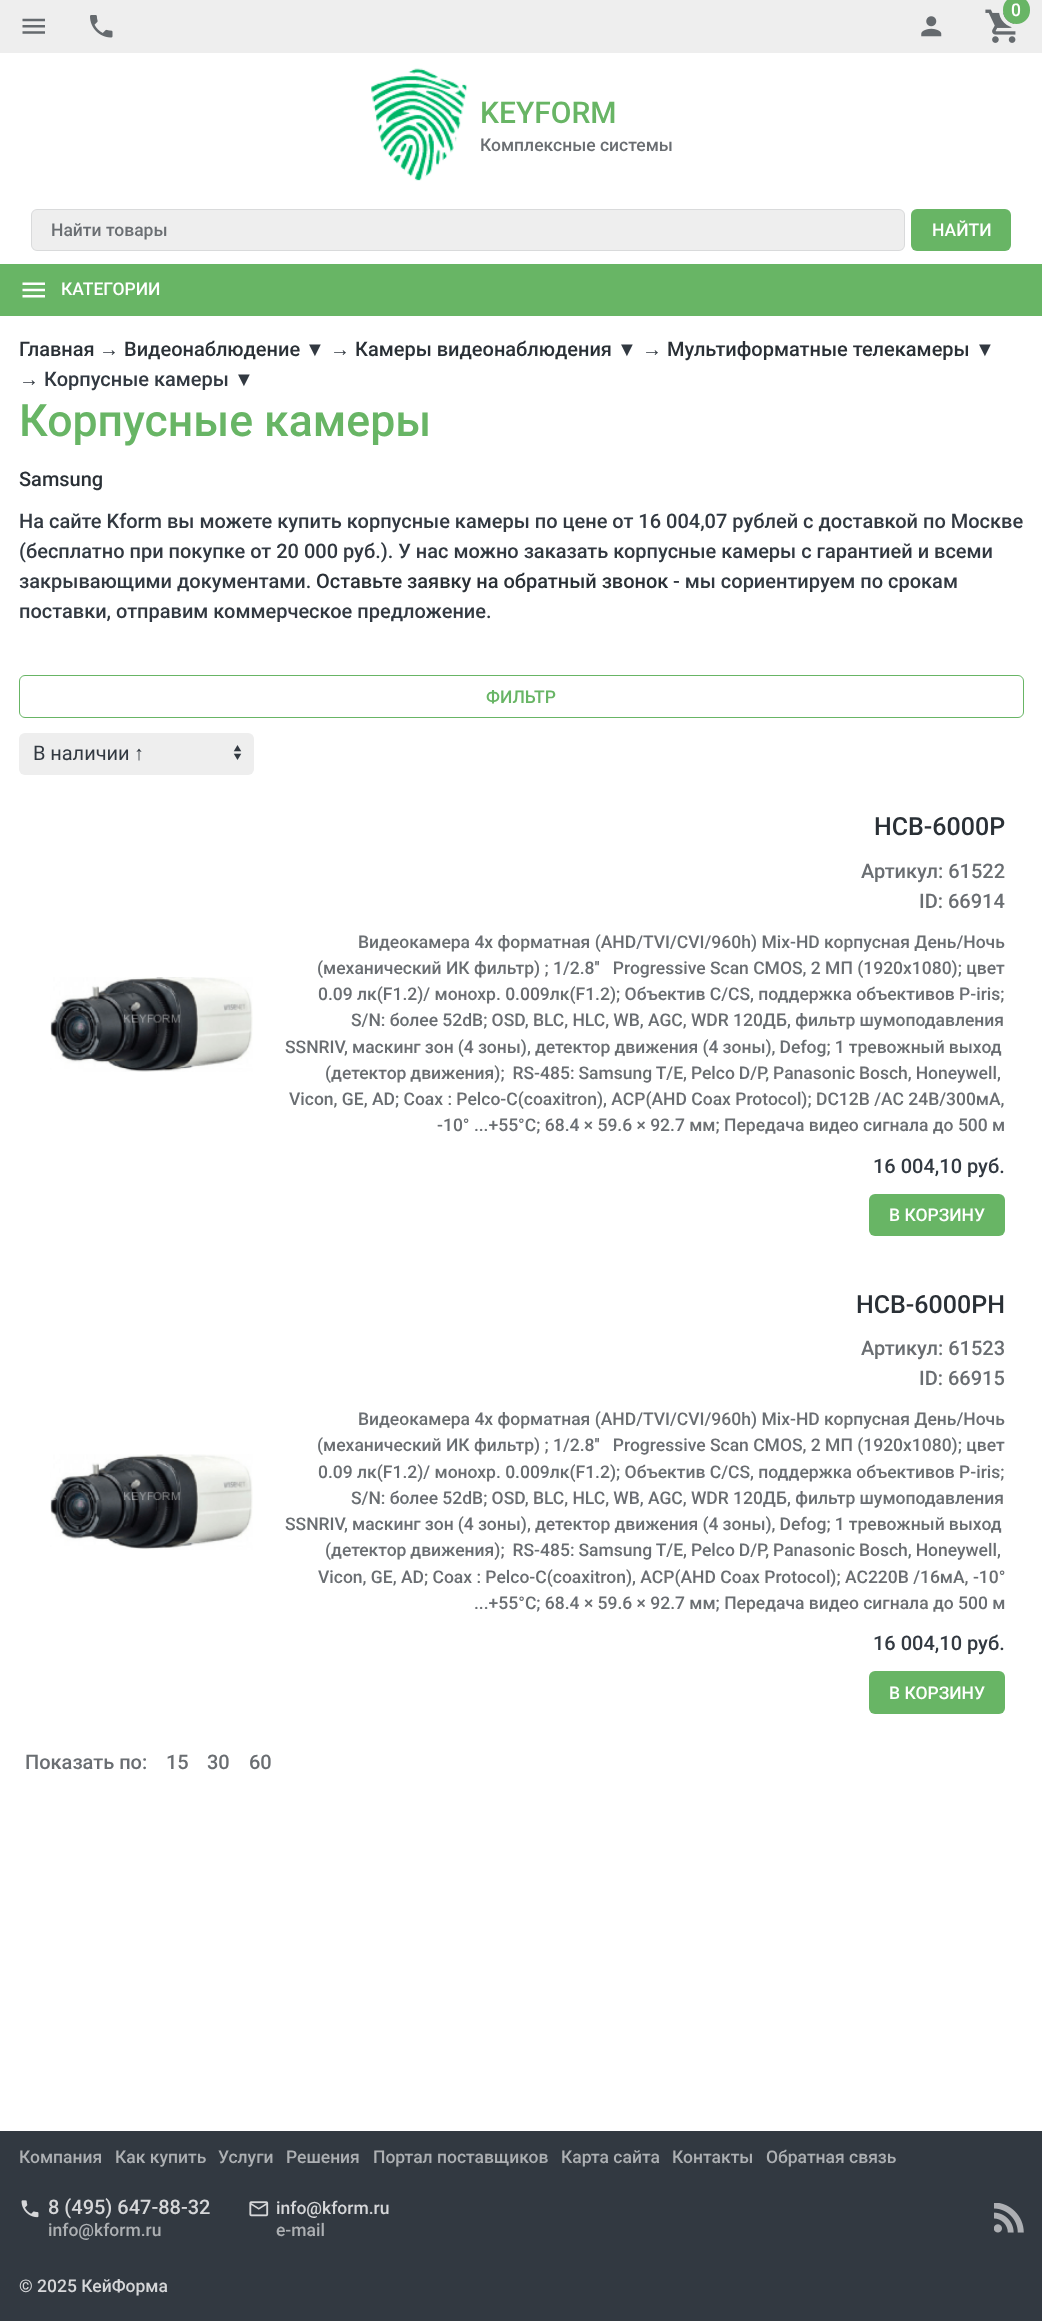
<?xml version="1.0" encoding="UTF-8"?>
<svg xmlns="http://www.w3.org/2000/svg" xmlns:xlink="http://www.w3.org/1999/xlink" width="1042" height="2321">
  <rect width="100%" height="100%" fill="#ffffff" />
  <rect width="1042" height="53" fill="#eeeeee" />
  <image x="985" y="9" width="31" height="34" xlink:href="image1.png" />
  <circle cx="1016.5" cy="10.5" r="15.5" fill="none" stroke="#eeeeee" stroke-width="4" />
  <rect x="1003" y="-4" width="27" height="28" rx="13.5" fill="#68b565" />
  <image x="921" y="16" width="21" height="21" xlink:href="image2.png" />
  <image x="22" y="18" width="23" height="16" xlink:href="image3.png" />
  <image x="90" y="15" width="23" height="23" xlink:href="image4.png" />
  <image x="371" y="68" width="96" height="113" xlink:href="image5.png" />
  <rect x="31" y="209" width="874" height="42" rx="6" fill="#eeeeee" />
  <rect x="31.5" y="209.5" width="873" height="41" rx="5.5" fill="none" stroke="#2a3036" stroke-opacity="0.1" />
  <rect x="911" y="209" width="100" height="42" rx="6" fill="#68b565" />
  <rect y="264" width="1042" height="52" fill="#68b565" />
  <image x="22" y="282" width="23" height="16" xlink:href="image6.png" />
  <rect x="19.5" y="675.5" width="1004" height="42" rx="5.5" fill="none" stroke="#68b565" />
  <rect x="19" y="733" width="235" height="42" rx="6" fill="#eeeeee" />
  <image x="233" y="745" width="9" height="15" xlink:href="image7.png" />
  <image x="50" y="977" width="203" height="95" xlink:href="image8.png" />
  <rect x="869" y="1194" width="136" height="42" rx="6" fill="#68b565" />
  <image x="50" y="1454" width="203" height="96" xlink:href="image9.png" />
  <rect x="869" y="1671" width="136" height="43" rx="6" fill="#68b565" />
  <rect y="2131" width="1042" height="190" fill="#323941" />
  <image x="21" y="2200" width="18" height="18" xlink:href="image10.png" />
  <image x="249" y="2201" width="20" height="16" xlink:href="image11.png" />
  <image x="994" y="2203" width="30" height="30" xlink:href="image12.png" />
  <text x="1011" y="16" style="font-family: Roboto; font-size: 17.5px; font-weight: 500; fill: #ffffff">0</text>
  <text x="480" y="123" style="font-family: Roboto; font-size: 30px; font-weight: 500; fill: #68b565">KEYFORM</text>
  <text x="480" y="151" style="font-family: Roboto; font-size: 17.5px; font-weight: 500; fill: #6a6e72">Комплексные системы</text>
  <text x="51" y="236" style="font-family: Roboto; font-size: 17.5px; font-weight: 500; fill: #6a6e72">Найти товары</text>
  <text x="932" y="236" style="font-family: Roboto; font-size: 17.5px; font-weight: 500; fill: #ffffff">НАЙТИ</text>
  <text x="61" y="295" style="font-family: Roboto; font-size: 17.5px; font-weight: 500; fill: #ffffff">КАТЕГОРИИ</text>
  <text x="19" y="356" style="font-family: Roboto; font-size: 20px; font-weight: 500; fill: #2a3036">Главная</text>
  <text x="99" y="356" style="font-family: Liberation Sans; font-size: 20px; fill: #323941">→</text>
  <text x="124" y="356" style="font-family: Roboto; font-size: 20px; font-weight: 500; fill: #2a3036">Видеонаблюдение</text>
  <text x="305" y="356" style="font-family: Liberation Sans; font-size: 20px; fill: #323941">▼</text>
  <text x="330" y="356" style="font-family: Liberation Sans; font-size: 20px; fill: #323941">→</text>
  <text x="355" y="356" style="font-family: Roboto; font-size: 20px; font-weight: 500; fill: #2a3036">Камеры видеонаблюдения</text>
  <text x="617" y="356" style="font-family: Liberation Sans; font-size: 20px; fill: #323941">▼</text>
  <text x="642" y="356" style="font-family: Liberation Sans; font-size: 20px; fill: #323941">→</text>
  <text x="667" y="356" style="font-family: Roboto; font-size: 20px; font-weight: 500; fill: #2a3036">Мультиформатные телекамеры</text>
  <text x="975" y="356" style="font-family: Liberation Sans; font-size: 20px; fill: #323941">▼</text>
  <text x="19" y="386" style="font-family: Liberation Sans; font-size: 20px; fill: #323941">→</text>
  <text x="44" y="386" style="font-family: Roboto; font-size: 20px; font-weight: 500; fill: #323941">Корпусные камеры</text>
  <text x="234" y="386" style="font-family: Liberation Sans; font-size: 20px; fill: #323941">▼</text>
  <text x="19" y="436" style="font-family: Roboto; font-size: 44.6px; font-weight: 500; fill: #68b565">Корпусные камеры</text>
  <text x="19" y="486" style="font-family: Roboto; font-size: 20px; font-weight: 500; fill: #2a3036">Samsung</text>
  <text x="19" y="528" style="font-family: Roboto; font-size: 20px; font-weight: 500; fill: #323941">На сайте Kform вы можете купить корпусные камеры по цене от 16 004,07 рублей с доставкой по Москве</text>
  <text x="19" y="558" style="font-family: Roboto; font-size: 20px; font-weight: 500; fill: #323941">(бесплатно при покупке от 20 000 руб.). У нас можно заказать корпусные камеры с гарантией и всеми</text>
  <text x="19" y="588" style="font-family: Roboto; font-size: 20px; font-weight: 500; fill: #323941">закрывающими документами.</text>
  <text x="316" y="588" style="font-family: Roboto; font-size: 20px; font-weight: 500; fill: #2a3036">Оставьте заявку на обратный звонок</text>
  <text x="673" y="588" style="font-family: Roboto; font-size: 20px; font-weight: 500; fill: #323941">- мы сориентируем по срокам</text>
  <text x="19" y="618" style="font-family: Roboto; font-size: 20px; font-weight: 500; fill: #323941">поставки, отправим коммерческое предложение.</text>
  <text x="486" y="703" style="font-family: Roboto; font-size: 17.5px; font-weight: 500; fill: #68b565">ФИЛЬТР</text>
  <text x="33" y="760" word-spacing="-0.25" style="font-family: Roboto; font-size: 20px; fill: #323941">В наличии</text>
  <text x="134" y="760" style="font-family: Liberation Sans; font-size: 20px; fill: #323941">↑</text>
  <text x="874" y="835" style="font-family: Roboto; font-size: 25px; font-weight: 500; fill: #2a3036">HCB-6000P</text>
  <text x="861" y="878" style="font-family: Roboto; font-size: 20px; font-weight: 500; fill: #6a6e72">Артикул: 61522</text>
  <text x="919" y="908" style="font-family: Roboto; font-size: 20px; font-weight: 500; fill: #6a6e72">ID: 66914</text>
  <text x="358" y="948" style="font-family: Roboto; font-size: 17.5px; font-weight: 500; fill: #6a6e72">Видеокамера 4х форматная (AHD/TVI/CVI/960h) Mix-HD корпусная День/Ночь</text>
  <text x="317" y="974" style="font-family: Roboto; font-size: 17.5px; font-weight: 500; fill: #6a6e72" xml:space="preserve">(механический ИК фильтр) ; 1/2.8''   Progressive Scan CMOS, 2 МП (1920х1080); цвет</text>
  <text x="318" y="1000" style="font-family: Roboto; font-size: 17.5px; font-weight: 500; fill: #6a6e72">0.09 лк(F1.2)/ монохр. 0.009лк(F1.2); Объектив C/CS, поддержка объективов P-iris;</text>
  <text x="351" y="1026" word-spacing="-0.1" style="font-family: Roboto; font-size: 17.5px; font-weight: 500; fill: #6a6e72">S/N: более 52dB; OSD, BLC, HLC, WB, AGC, WDR 120ДБ, фильтр шумоподавления</text>
  <text x="285" y="1053" word-spacing="-0.25" style="font-family: Roboto; font-size: 17.5px; font-weight: 500; fill: #6a6e72">SSNRIV, маскинг зон (4 зоны), детектор движения (4 зоны), Defog; 1 тревожный выход</text>
  <text x="325" y="1079" word-spacing="-0.4" style="font-family: Roboto; font-size: 17.5px; font-weight: 500; fill: #6a6e72" xml:space="preserve">(детектор движения);  RS-485: Samsung T/E, Pelco D/P, Panasonic Bosch, Honeywell,</text>
  <text x="289" y="1105" style="font-family: Roboto; font-size: 17.5px; font-weight: 500; fill: #6a6e72">Vicon, GE, AD; Coax : Pelco-C(coaxitron), ACP(AHD Coax Protocol); DC12В /AC 24В/300мА,</text>
  <text x="437" y="1131" style="font-family: Roboto; font-size: 17.5px; font-weight: 500; fill: #6a6e72">-10° ...+55°C; 68.4 × 59.6 × 92.7 мм; Передача видео сигнала до 500 м</text>
  <text x="873" y="1173" style="font-family: Roboto; font-size: 20px; font-weight: 500; fill: #323941">16 004,10 руб.</text>
  <text x="889" y="1221" style="font-family: Roboto; font-size: 17.5px; font-weight: 500; fill: #ffffff">В КОРЗИНУ</text>
  <text x="856" y="1313" style="font-family: Roboto; font-size: 25px; font-weight: 500; fill: #2a3036">HCB-6000PH</text>
  <text x="861" y="1355" style="font-family: Roboto; font-size: 20px; font-weight: 500; fill: #6a6e72">Артикул: 61523</text>
  <text x="919" y="1385" style="font-family: Roboto; font-size: 20px; font-weight: 500; fill: #6a6e72">ID: 66915</text>
  <text x="358" y="1425" style="font-family: Roboto; font-size: 17.5px; font-weight: 500; fill: #6a6e72">Видеокамера 4х форматная (AHD/TVI/CVI/960h) Mix-HD корпусная День/Ночь</text>
  <text x="317" y="1451" style="font-family: Roboto; font-size: 17.5px; font-weight: 500; fill: #6a6e72" xml:space="preserve">(механический ИК фильтр) ; 1/2.8''   Progressive Scan CMOS, 2 МП (1920х1080); цвет</text>
  <text x="318" y="1478" style="font-family: Roboto; font-size: 17.5px; font-weight: 500; fill: #6a6e72">0.09 лк(F1.2)/ монохр. 0.009лк(F1.2); Объектив C/CS, поддержка объективов P-iris;</text>
  <text x="351" y="1504" word-spacing="-0.1" style="font-family: Roboto; font-size: 17.5px; font-weight: 500; fill: #6a6e72">S/N: более 52dB; OSD, BLC, HLC, WB, AGC, WDR 120ДБ, фильтр шумоподавления</text>
  <text x="285" y="1530" word-spacing="-0.25" style="font-family: Roboto; font-size: 17.5px; font-weight: 500; fill: #6a6e72">SSNRIV, маскинг зон (4 зоны), детектор движения (4 зоны), Defog; 1 тревожный выход</text>
  <text x="325" y="1556" word-spacing="-0.4" style="font-family: Roboto; font-size: 17.5px; font-weight: 500; fill: #6a6e72" xml:space="preserve">(детектор движения);  RS-485: Samsung T/E, Pelco D/P, Panasonic Bosch, Honeywell,</text>
  <text x="318" y="1583" style="font-family: Roboto; font-size: 17.5px; font-weight: 500; fill: #6a6e72">Vicon, GE, AD; Coax : Pelco-C(coaxitron), ACP(AHD Coax Protocol); AC220В /16мА, -10°</text>
  <text x="474" y="1609" style="font-family: Roboto; font-size: 17.5px; font-weight: 500; fill: #6a6e72">...+55°C; 68.4 × 59.6 × 92.7 мм; Передача видео сигнала до 500 м</text>
  <text x="873" y="1650" style="font-family: Roboto; font-size: 20px; font-weight: 500; fill: #323941">16 004,10 руб.</text>
  <text x="889" y="1699" style="font-family: Roboto; font-size: 17.5px; font-weight: 500; fill: #ffffff">В КОРЗИНУ</text>
  <text x="25" y="1769" style="font-family: Roboto; font-size: 20px; font-weight: 500; fill: #6a6e72">Показать по:</text>
  <text x="166" y="1769" style="font-family: Roboto; font-size: 20px; font-weight: 500; fill: #6a6e72">15</text>
  <text x="207" y="1769" style="font-family: Roboto; font-size: 20px; font-weight: 500; fill: #6a6e72">30</text>
  <text x="249" y="1769" style="font-family: Roboto; font-size: 20px; font-weight: 500; fill: #6a6e72">60</text>
  <text x="19" y="2163" style="font-family: Roboto; font-size: 17.5px; font-weight: 500; fill: #adb0b3">Компания</text>
  <text x="115" y="2163" style="font-family: Roboto; font-size: 17.5px; font-weight: 500; fill: #adb0b3">Как купить</text>
  <text x="218" y="2163" style="font-family: Roboto; font-size: 17.5px; font-weight: 500; fill: #adb0b3">Услуги</text>
  <text x="286" y="2163" style="font-family: Roboto; font-size: 17.5px; font-weight: 500; fill: #adb0b3">Решения</text>
  <text x="373" y="2163" style="font-family: Roboto; font-size: 17.5px; font-weight: 500; fill: #adb0b3">Портал поставщиков</text>
  <text x="561" y="2163" style="font-family: Roboto; font-size: 17.5px; font-weight: 500; fill: #adb0b3">Карта сайта</text>
  <text x="672" y="2163" style="font-family: Roboto; font-size: 17.5px; font-weight: 500; fill: #adb0b3">Контакты</text>
  <text x="766" y="2163" style="font-family: Roboto; font-size: 17.5px; font-weight: 500; fill: #adb0b3">Обратная связь</text>
  <text x="48" y="2214" style="font-family: Roboto; font-size: 20px; font-weight: 500; fill: #d6d7d9">8 (495) 647-88-32</text>
  <text x="48" y="2236" style="font-family: Roboto; font-size: 17.5px; font-weight: 500; fill: #adb0b3">info@kform.ru</text>
  <text x="276" y="2214" style="font-family: Roboto; font-size: 17.5px; font-weight: 500; fill: #d6d7d9">info@kform.ru</text>
  <text x="276" y="2236" style="font-family: Roboto; font-size: 17.5px; font-weight: 500; fill: #adb0b3">e-mail</text>
  <text x="19" y="2292" style="font-family: Roboto; font-size: 17.5px; font-weight: 500; fill: #d6d7d9">© 2025 КейФорма</text>
</svg>
